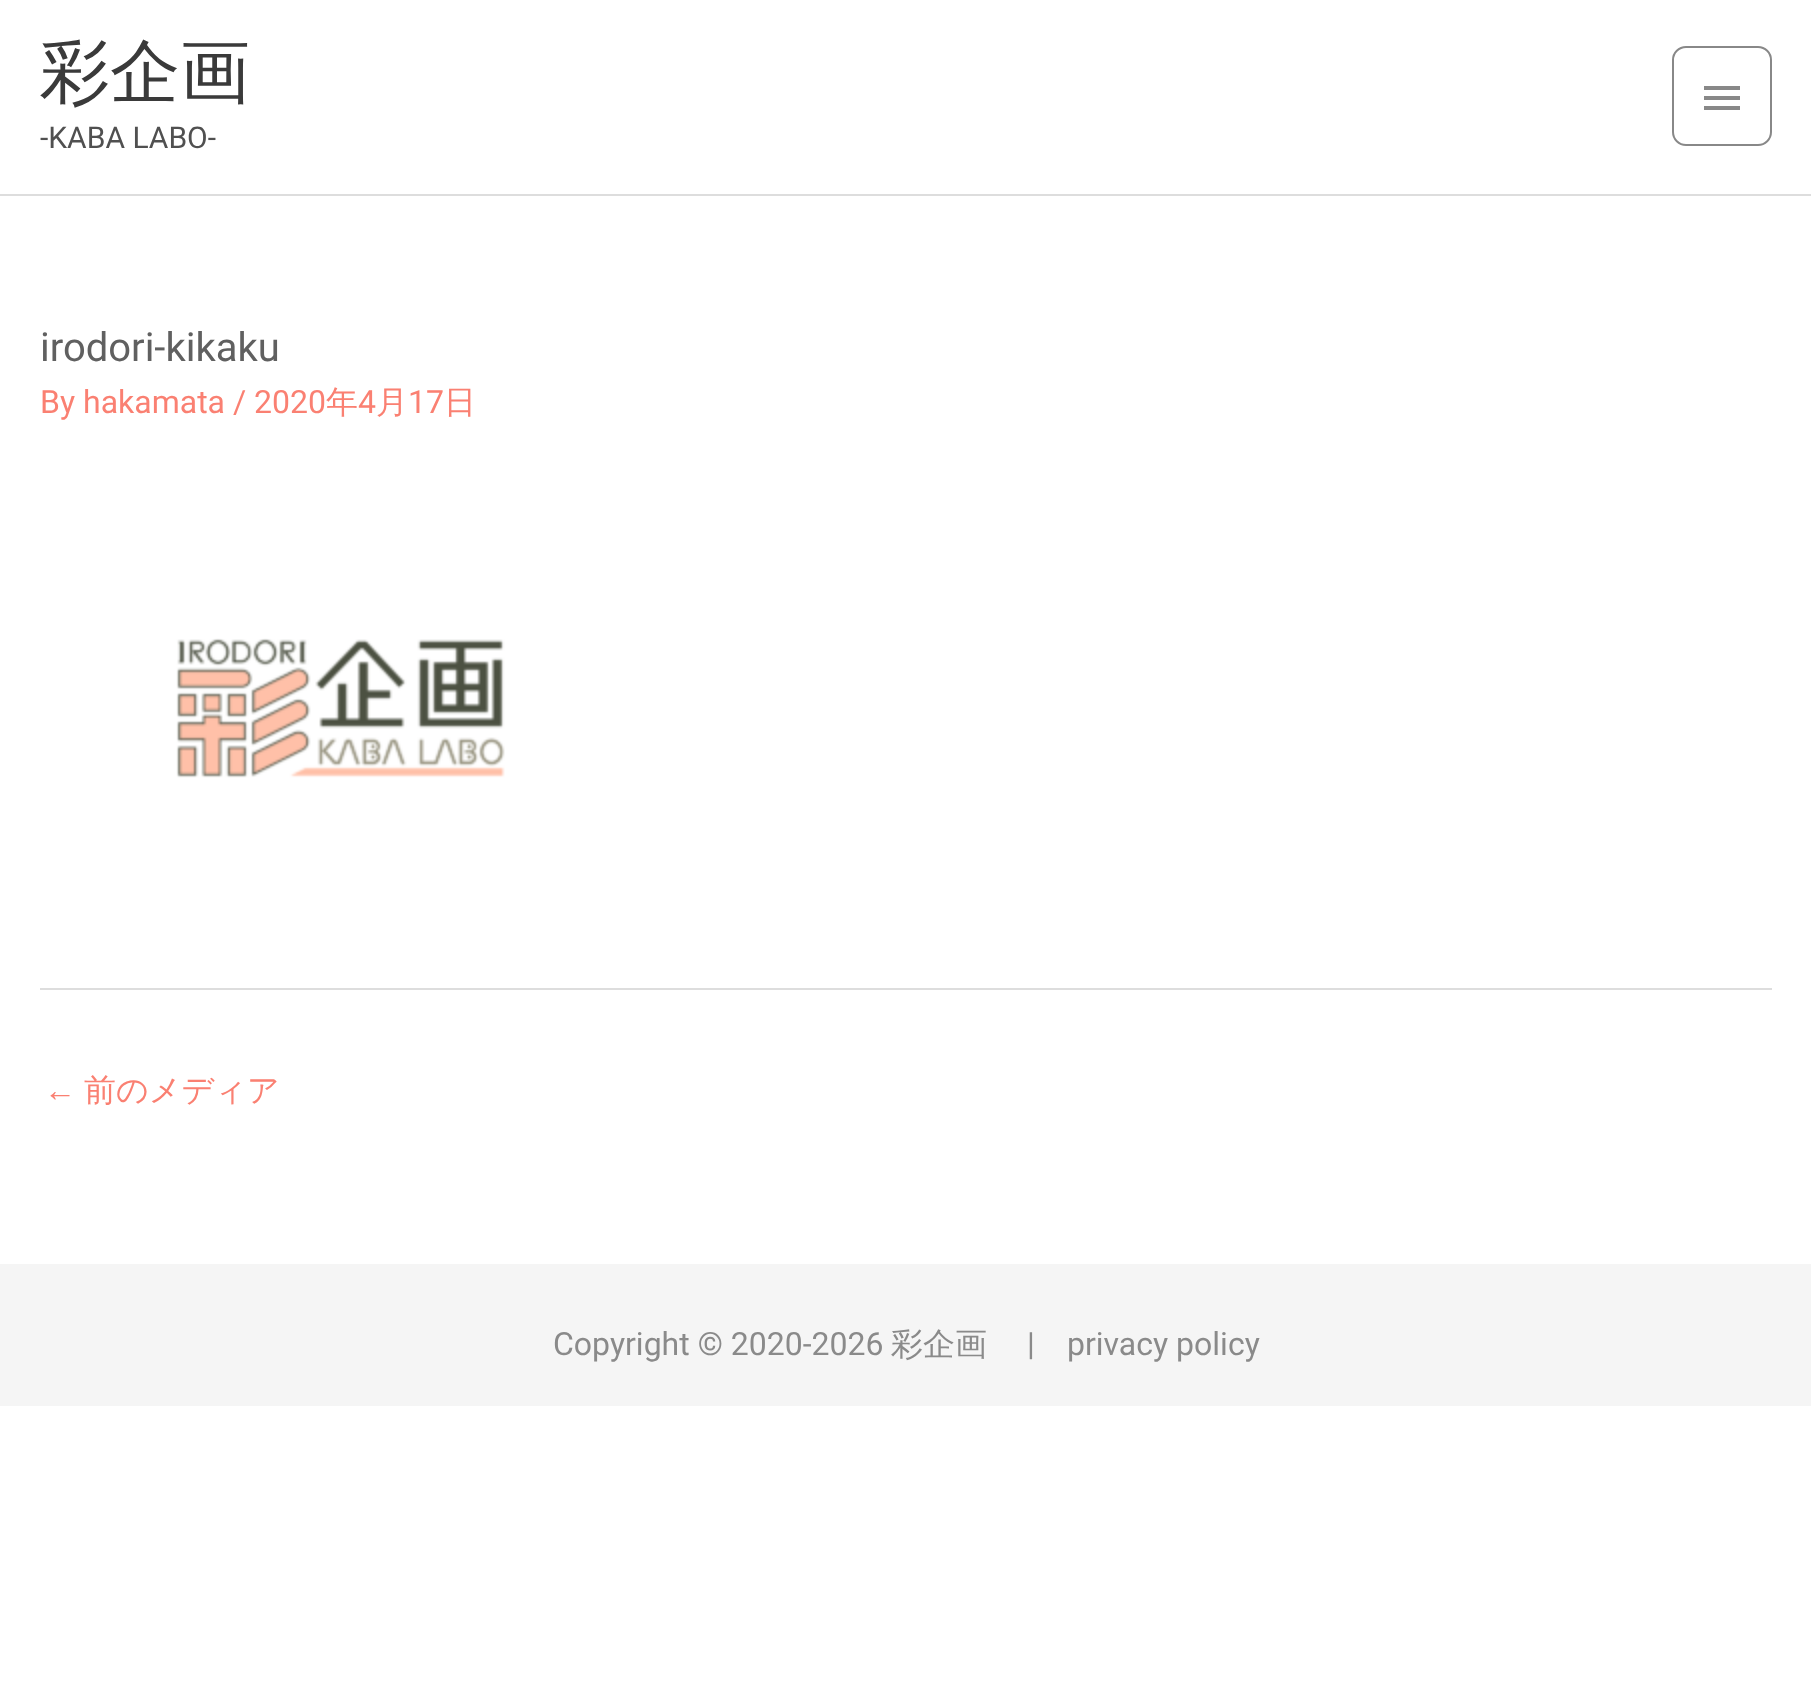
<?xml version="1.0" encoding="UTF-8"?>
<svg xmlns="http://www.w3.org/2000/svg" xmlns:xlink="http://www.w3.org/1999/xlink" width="1811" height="1693">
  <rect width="100%" height="100%" fill="#ffffff" />
  <rect y="194" width="1811" height="2" fill="#dddddd" />
  <rect x="1673" y="47" width="98" height="98" rx="13" fill="none" stroke="#888888" stroke-width="2" />
  <path d="M 1704 86 h 36 v 4 h -36 z m 0 14 v -4 h 36 v 4 z m 0 10 v -4 h 36 v 4 z" fill="#888888" />
  <image x="176" y="638" width="329" height="140" xlink:href="image1.png" />
  <rect x="40" y="988" width="1732" height="2" fill="#dddddd" />
  <rect y="1264" width="1811" height="142" fill="#f5f5f5" />
  <text x="40" y="96" style="font-family: WenQuanYi Zen Hei; font-size: 70px; font-weight: 500; fill: #3a3a3a">彩企画</text>
  <text x="40" y="148" style="font-family: Roboto; font-size: 30px; fill: #505050">-KABA LABO-</text>
  <text x="40" y="361" style="font-family: Roboto; font-size: 40px; fill: #606060">irodori-kikaku</text>
  <text x="40" y="413" style="font-family: Roboto; font-size: 32px; fill: #fa8072">By hakamata / 2020</text>
  <text x="326" y="413" style="font-family: WenQuanYi Zen Hei; font-size: 32px; font-weight: 500; fill: #fa8072">年</text>
  <text x="358" y="413" style="font-family: Roboto; font-size: 32px; fill: #fa8072">4</text>
  <text x="376" y="413" style="font-family: WenQuanYi Zen Hei; font-size: 32px; font-weight: 500; fill: #fa8072">月</text>
  <text x="408" y="413" style="font-family: Roboto; font-size: 32px; fill: #fa8072">17</text>
  <text x="444" y="413" style="font-family: WenQuanYi Zen Hei; font-size: 32px; font-weight: 500; fill: #fa8072">日</text>
  <text x="44" y="1101" style="font-family: Liberation Sans; font-size: 32px; fill: #fa8072">←</text>
  <text x="84" y="1101" style="font-family: WenQuanYi Zen Hei; font-size: 32px; font-weight: 500; fill: #fa8072">前のメディア</text>
  <text x="553" y="1355" style="font-family: Roboto; font-size: 32px; fill: #8a8a8a">Copyright © 2020-2026</text>
  <text x="891" y="1355" style="font-family: WenQuanYi Zen Hei; font-size: 32px; font-weight: 500; fill: #8a8a8a">彩企画</text>
  <text x="1027" y="1355" style="font-family: Roboto; font-size: 32px; fill: #8a8a8a">|</text>
  <text x="1067" y="1355" style="font-family: Roboto; font-size: 32px; fill: #8a8a8a">privacy policy</text>
</svg>
